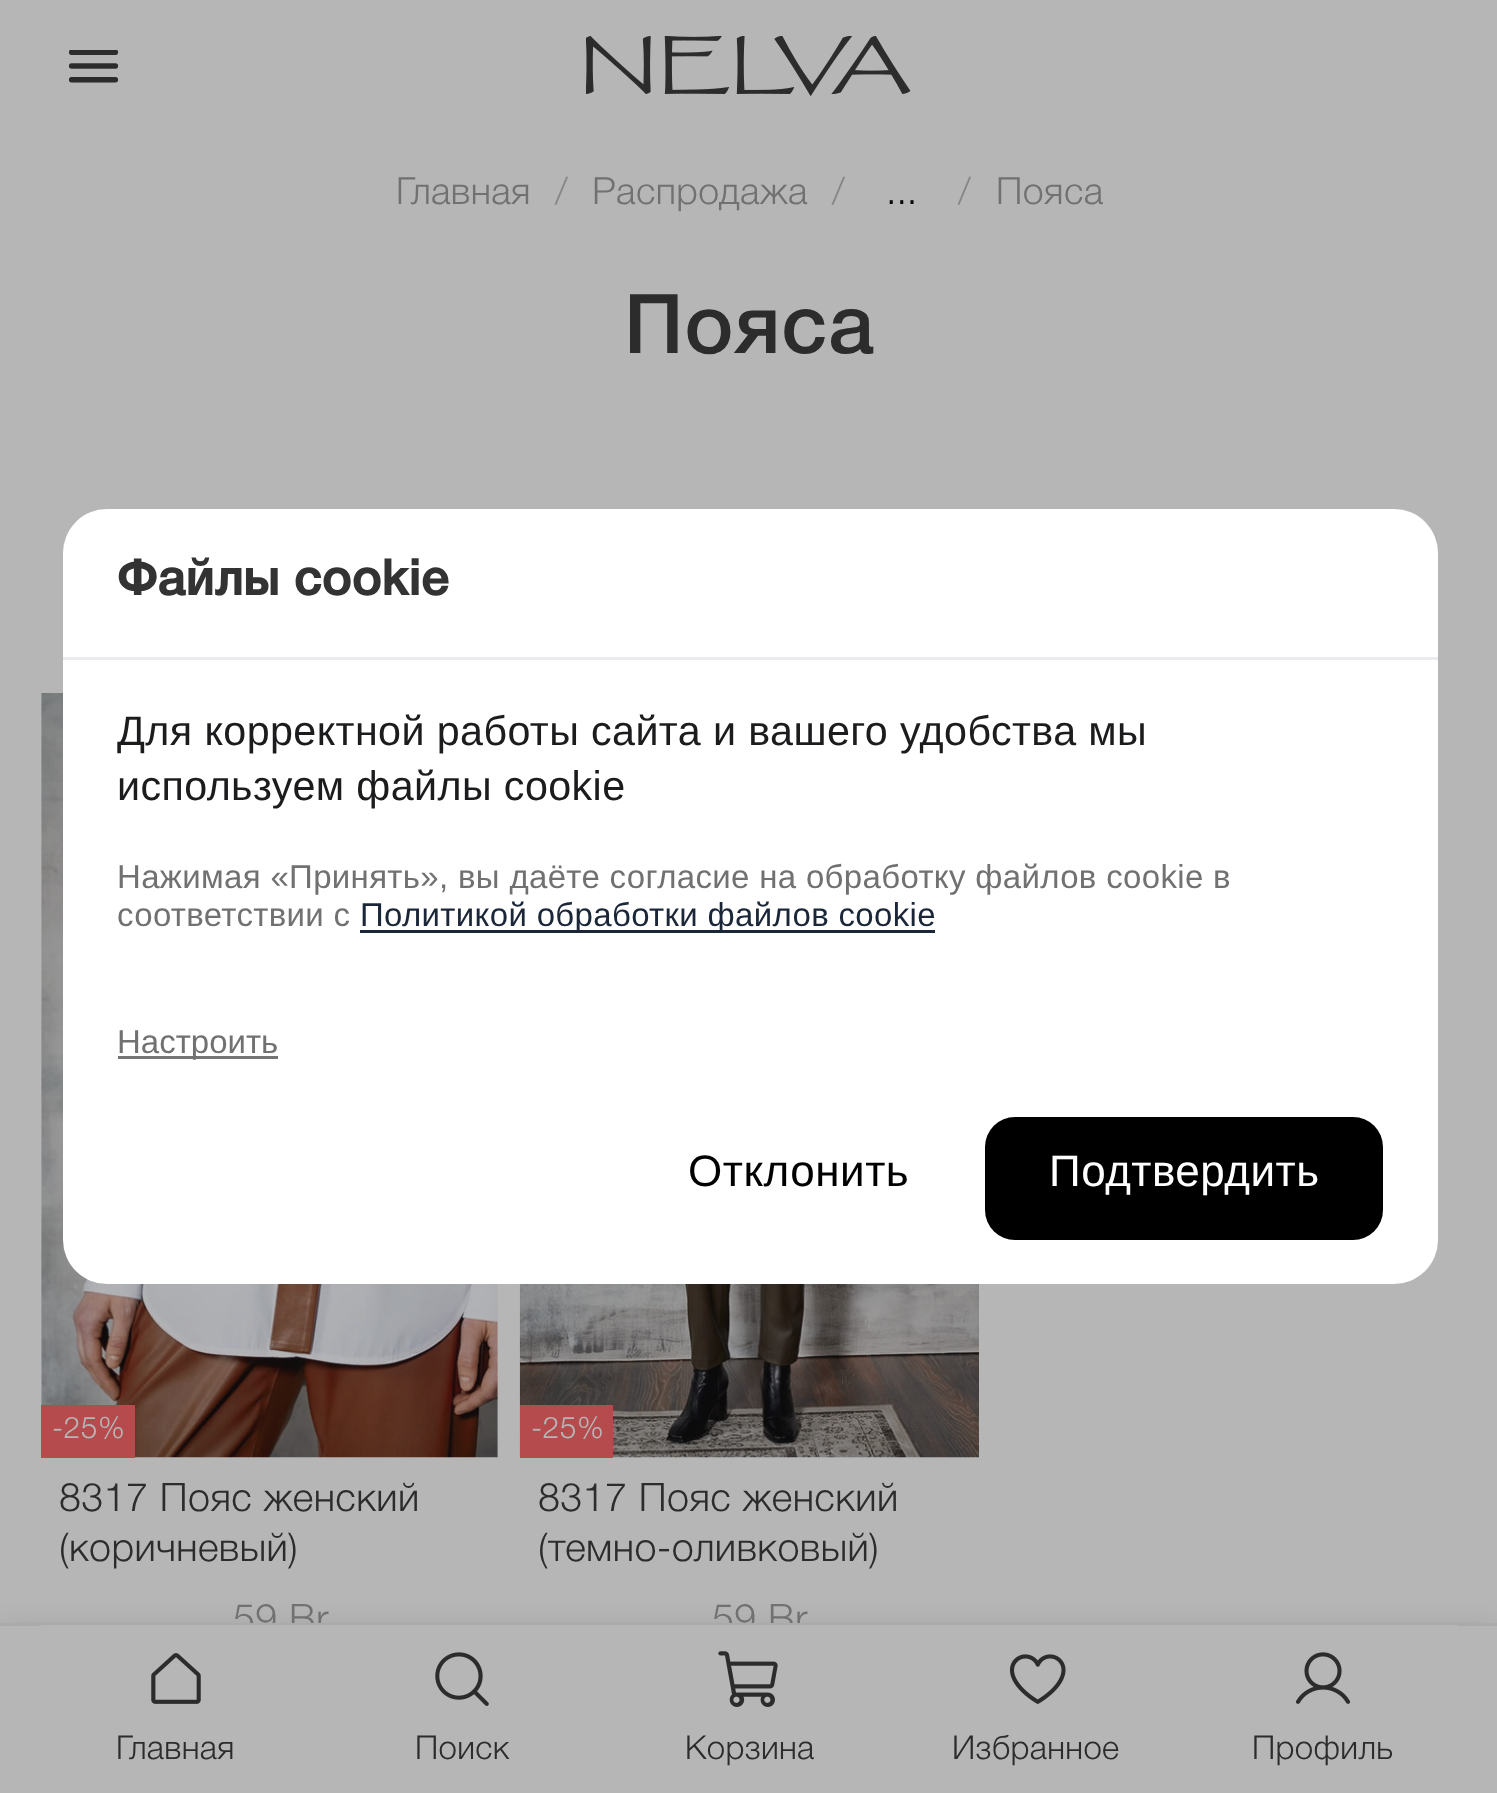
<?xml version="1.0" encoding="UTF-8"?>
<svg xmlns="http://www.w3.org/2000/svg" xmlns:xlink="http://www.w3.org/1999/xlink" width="1497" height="1793">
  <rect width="100%" height="100%" fill="#b6b6b7" />
  <image x="69" y="50" width="49" height="33" xlink:href="image1.png" />
  <image x="586" y="36" width="325" height="60" xlink:href="image2.png" />
  <image x="41" y="693" width="457" height="765" xlink:href="image3.png" />
  <rect x="41" y="1405" width="94" height="53" fill="#b64b4d" />
  <image x="519" y="1284" width="460" height="174" xlink:href="image4.png" />
  <rect x="520" y="1405" width="93" height="53" fill="#b64b4d" />
  <rect x="63" y="509" width="1375" height="775" rx="44" fill="#ffffff" />
  <rect x="63" y="657" width="1375" height="3" fill="#ececf0" />
  <rect x="360" y="930" width="575" height="3" fill="#1b2738" />
  <rect x="118" y="1056" width="160" height="3" fill="#757576" />
  <rect x="985" y="1117" width="398" height="123" rx="30" fill="#000000" />
  <rect y="1628" width="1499" height="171" fill="#09090a" fill-opacity="0.12" filter="blur(14px)" />
  <text x="396" y="204" style="font-family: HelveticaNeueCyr; font-size: 37.5px; font-weight: 300; letter-spacing: 0.4px; fill: #717172">Главная</text>
  <text x="555" y="204" style="font-family: HelveticaNeueCyr; font-size: 37.5px; font-weight: 300; letter-spacing: 0.4px; fill: #868687">/</text>
  <text x="592" y="204" style="font-family: HelveticaNeueCyr; font-size: 37.5px; font-weight: 300; letter-spacing: 0.4px; fill: #717172">Распродажа</text>
  <text x="832" y="204" style="font-family: HelveticaNeueCyr; font-size: 37.5px; font-weight: 300; letter-spacing: 0.4px; fill: #868687">/</text>
  <text x="886" y="204" style="font-family: HelveticaNeueCyr; font-size: 37.5px; font-weight: 300; fill: #09090a">...</text>
  <text x="958" y="204" style="font-family: HelveticaNeueCyr; font-size: 37.5px; font-weight: 300; letter-spacing: 0.4px; fill: #868687">/</text>
  <text x="996" y="204" style="font-family: HelveticaNeueCyr; font-size: 37.5px; font-weight: 300; letter-spacing: 0.4px; fill: #717172">Пояса</text>
  <text x="624" y="353" style="font-family: HelveticaNeueCyr; font-size: 82.5px; font-weight: 500; letter-spacing: 1px; fill: #2c2c2c">Пояса</text>
  <text x="52" y="1438" style="font-family: HelveticaNeueCyr; font-size: 30px; font-weight: 300; letter-spacing: 0.5px; fill: #b6b6b7">-25%</text>
  <text x="59" y="1511" style="font-family: HelveticaNeueCyr; font-size: 39.5px; font-weight: 300; letter-spacing: 0.4px; fill: #2c2c2c">8317 Пояс женский</text>
  <text x="59" y="1561" style="font-family: HelveticaNeueCyr; font-size: 39.5px; font-weight: 300; letter-spacing: 0.4px; fill: #2c2c2c">(коричневый)</text>
  <text x="233" y="1632" style="font-family: HelveticaNeueCyr; font-size: 39.5px; font-weight: 300; letter-spacing: 0.4px; fill: #717172">59 Br</text>
  <text x="531" y="1438" style="font-family: HelveticaNeueCyr; font-size: 30px; font-weight: 300; letter-spacing: 0.5px; fill: #b6b6b7">-25%</text>
  <text x="538" y="1511" style="font-family: HelveticaNeueCyr; font-size: 39.5px; font-weight: 300; letter-spacing: 0.4px; fill: #2c2c2c">8317 Пояс женский</text>
  <text x="538" y="1561" style="font-family: HelveticaNeueCyr; font-size: 39.5px; font-weight: 300; letter-spacing: 0.4px; fill: #2c2c2c">(темно-оливковый)</text>
  <text x="712" y="1632" style="font-family: HelveticaNeueCyr; font-size: 39.5px; font-weight: 300; letter-spacing: 0.4px; fill: #717172">59 Br</text>
  <text x="117" y="595" style="font-family: HelveticaNeueCyr; font-size: 49.5px; font-weight: bold; letter-spacing: 0.5px; fill: #333333">Файлы cookie</text>
  <text x="117" y="745" style="font-family: Liberation Sans; font-size: 41.25px; letter-spacing: 0.4px; fill: #1c1c1e">Для корректной работы сайта и вашего удобства мы</text>
  <text x="117" y="800" style="font-family: Liberation Sans; font-size: 41.25px; letter-spacing: 0.4px; fill: #1c1c1e">используем файлы cookie</text>
  <text x="117" y="888" style="font-family: Liberation Sans; font-size: 33px; letter-spacing: 0.33px; fill: #717172">Нажимая «Принять», вы даёте согласие на обработку файлов cookie в</text>
  <text x="117" y="926" style="font-family: Liberation Sans; font-size: 33px; letter-spacing: 0.33px; fill: #717172">соответствии с</text>
  <text x="360" y="926" style="font-family: Liberation Sans; font-size: 33px; letter-spacing: 0.33px; fill: #1b2738">Политикой обработки файлов cookie</text>
  <text x="117" y="1053" style="font-family: Liberation Sans; font-size: 33px; fill: #717172">Настроить</text>
  <text x="688" y="1186" style="font-family: Liberation Sans; font-size: 44px; letter-spacing: 0.5px; fill: #000000">Отклонить</text>
  <text x="1049" y="1186" style="font-family: Liberation Sans; font-size: 44px; letter-spacing: 0.5px; fill: #ffffff">Подтвердить</text>
  <rect y="1626" width="1497" height="167" fill="#b6b6b7" />
  <rect y="1623" width="1497" height="3" fill="#aaaaab" />
  <rect x="41" y="1625" width="1417" height="1" fill="#b6b6b7" />
  <image x="151" y="1653" width="50" height="51" xlink:href="image5.png" />
  <text x="116" y="1759" style="font-family: HelveticaNeueCyr; font-size: 33px; font-weight: 300; letter-spacing: 0.33px; fill: #2c2c2c">Главная</text>
  <image x="435" y="1652" width="54" height="54" xlink:href="image6.png" />
  <text x="415" y="1759" style="font-family: HelveticaNeueCyr; font-size: 33px; font-weight: 300; letter-spacing: 0.33px; fill: #2c2c2c">Поиск</text>
  <image x="718" y="1651" width="60" height="56" xlink:href="image7.png" />
  <text x="685" y="1759" style="font-family: HelveticaNeueCyr; font-size: 33px; font-weight: 300; letter-spacing: 0.33px; fill: #2c2c2c">Корзина</text>
  <image x="1009" y="1654" width="57" height="50" xlink:href="image8.png" />
  <text x="952" y="1759" style="font-family: HelveticaNeueCyr; font-size: 33px; font-weight: 300; letter-spacing: 0.33px; fill: #2c2c2c">Избранное</text>
  <image x="1295" y="1652" width="56" height="52" xlink:href="image9.png" />
  <text x="1252" y="1759" style="font-family: HelveticaNeueCyr; font-size: 33px; font-weight: 300; letter-spacing: 0.33px; fill: #2c2c2c">Профиль</text>
</svg>
